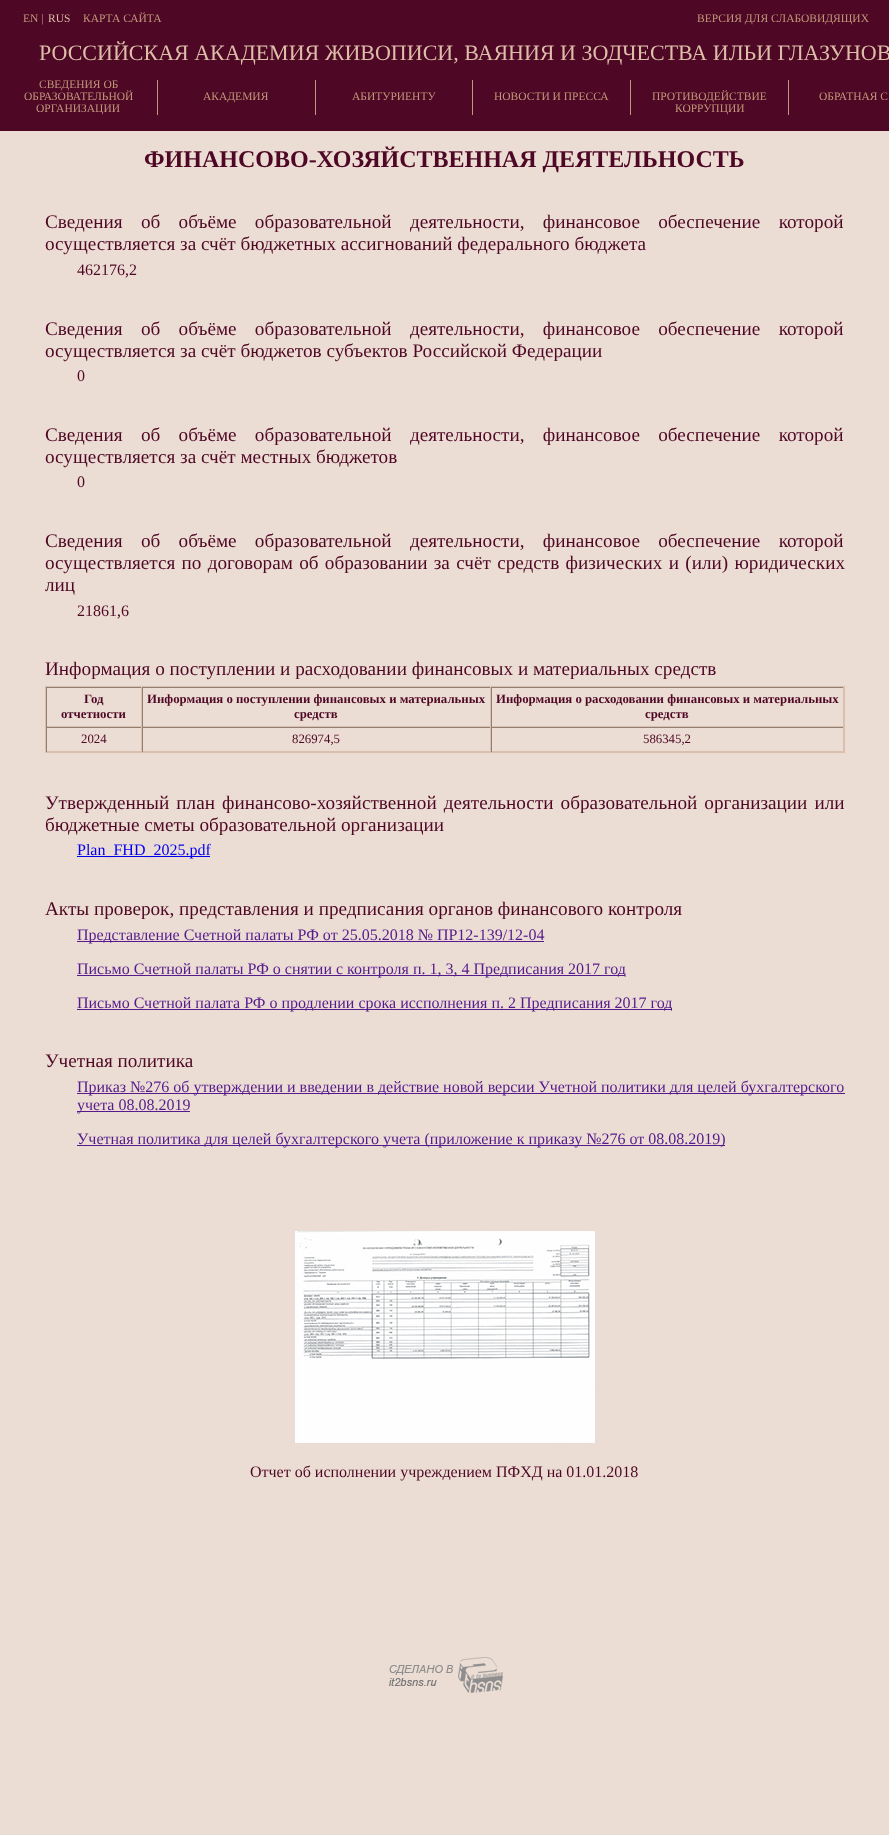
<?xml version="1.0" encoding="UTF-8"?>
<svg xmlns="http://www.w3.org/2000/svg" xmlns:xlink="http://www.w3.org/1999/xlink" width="889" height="1835">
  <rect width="100%" height="100%" fill="#ecddd4" />
  <rect width="889" height="131" fill="#4e0724" />
  <rect x="157" y="80" width="1" height="35" fill="#c0977a" />
  <rect x="315" y="80" width="1" height="35" fill="#c0977a" />
  <rect x="472" y="80" width="1" height="35" fill="#c0977a" />
  <rect x="630" y="80" width="1" height="35" fill="#c0977a" />
  <rect x="788" y="80" width="1" height="35" fill="#c0977a" />
  <rect x="45.5" y="686.5" width="799" height="66" fill="none" stroke="#dbbfae" />
  <rect x="46" y="687" width="798" height="1" fill="#927f74" />
  <rect x="141" y="687" width="1" height="40" fill="#dbbfae" />
  <rect x="46" y="726" width="96" height="1" fill="#dbbfae" />
  <rect x="46" y="687" width="1" height="40" fill="#927f74" />
  <rect x="490" y="687" width="1" height="40" fill="#dbbfae" />
  <rect x="142" y="726" width="349" height="1" fill="#dbbfae" />
  <rect x="142" y="687" width="1" height="40" fill="#927f74" />
  <rect x="843" y="687" width="1" height="40" fill="#dbbfae" />
  <rect x="491" y="726" width="353" height="1" fill="#dbbfae" />
  <rect x="491" y="687" width="1" height="40" fill="#927f74" />
  <rect x="46" y="727" width="798" height="1" fill="#927f74" />
  <rect x="141" y="727" width="1" height="25" fill="#dbbfae" />
  <rect x="46" y="751" width="96" height="1" fill="#dbbfae" />
  <rect x="46" y="727" width="1" height="25" fill="#927f74" />
  <rect x="490" y="727" width="1" height="25" fill="#dbbfae" />
  <rect x="142" y="751" width="349" height="1" fill="#dbbfae" />
  <rect x="142" y="727" width="1" height="25" fill="#927f74" />
  <rect x="843" y="727" width="1" height="25" fill="#dbbfae" />
  <rect x="491" y="751" width="353" height="1" fill="#dbbfae" />
  <rect x="491" y="727" width="1" height="25" fill="#927f74" />
  <rect x="77" y="856" width="133" height="1" fill="#0000ee" />
  <rect x="77" y="941" width="467" height="1" fill="#551a8b" />
  <rect x="77" y="975" width="548" height="1" fill="#551a8b" />
  <rect x="77" y="1009" width="595" height="1" fill="#551a8b" />
  <rect x="77" y="1093" width="768" height="1" fill="#551a8b" />
  <rect x="77" y="1111" width="113" height="1" fill="#551a8b" />
  <rect x="77" y="1145" width="648" height="1" fill="#551a8b" />
  <image x="295" y="1231" width="300" height="212" xlink:href="image1.png" />
  <image x="389" y="1657" width="114" height="36" xlink:href="image2.png" />
  <text x="23" y="22" style="font-family: Liberation Serif; font-size: 11.5px; fill: #c0977a">EN |</text>
  <text x="48" y="22" style="font-family: Liberation Serif; font-size: 11.5px; fill: #dcbea9">RUS</text>
  <text x="83" y="22" style="font-family: Liberation Serif; font-size: 11.5px; fill: #c0977a">КАРТА САЙТА</text>
  <text x="697" y="22" style="font-family: Liberation Serif; font-size: 11.5px; fill: #c0977a">ВЕРСИЯ ДЛЯ СЛАБОВИДЯЩИХ</text>
  <text x="39" y="88" style="font-family: Liberation Serif; font-size: 11.5px; fill: #c0977a">СВЕДЕНИЯ ОБ</text>
  <text x="24" y="100" style="font-family: Liberation Serif; font-size: 11.5px; fill: #c0977a">ОБРАЗОВАТЕЛЬНОЙ</text>
  <text x="36" y="112" style="font-family: Liberation Serif; font-size: 11.5px; fill: #c0977a">ОРГАНИЗАЦИИ</text>
  <text x="203" y="100" style="font-family: Liberation Serif; font-size: 11.5px; fill: #c0977a">АКАДЕМИЯ</text>
  <text x="352" y="100" style="font-family: Liberation Serif; font-size: 11.5px; fill: #c0977a">АБИТУРИЕНТУ</text>
  <text x="494" y="100" style="font-family: Liberation Serif; font-size: 11.5px; fill: #c0977a">НОВОСТИ И ПРЕССА</text>
  <text x="652" y="100" style="font-family: Liberation Serif; font-size: 11.5px; fill: #c0977a">ПРОТИВОДЕЙСТВИЕ</text>
  <text x="675" y="112" style="font-family: Liberation Serif; font-size: 11.5px; fill: #c0977a">КОРРУПЦИИ</text>
  <text x="819" y="100" style="font-family: Liberation Serif; font-size: 11.5px; fill: #c0977a">ОБРАТНАЯ С</text>
  <text x="39" y="60" style="font-family: Liberation Serif; font-size: 22px; fill: #dcbea9">РОССИЙСКАЯ АКАДЕМИЯ ЖИВОПИСИ, ВАЯНИЯ И ЗОДЧЕСТВА ИЛЬИ ГЛАЗУНОВ</text>
  <text x="144" y="167" style="font-family: Liberation Serif; font-size: 24px; font-weight: bold; fill: #4e0724">ФИНАНСОВО-ХОЗЯЙСТВЕННАЯ ДЕЯТЕЛЬНОСТЬ</text>
  <text x="45" y="228" word-spacing="13.5" style="font-family: Liberation Serif; font-size: 19.2px; fill: #4e0724">Сведения об объёме образовательной деятельности, финансовое обеспечение которой</text>
  <text x="45" y="250" style="font-family: Liberation Serif; font-size: 19.2px; fill: #4e0724">осуществляется за счёт бюджетных ассигнований федерального бюджета</text>
  <text x="77" y="275" style="font-family: Liberation Serif; font-size: 16px; fill: #4e0724">462176,2</text>
  <text x="45" y="335" word-spacing="13.5" style="font-family: Liberation Serif; font-size: 19.2px; fill: #4e0724">Сведения об объёме образовательной деятельности, финансовое обеспечение которой</text>
  <text x="45" y="357" style="font-family: Liberation Serif; font-size: 19.2px; fill: #4e0724">осуществляется за счёт бюджетов субъектов Российской Федерации</text>
  <text x="77" y="381" style="font-family: Liberation Serif; font-size: 16px; fill: #4e0724">0</text>
  <text x="45" y="441" word-spacing="13.5" style="font-family: Liberation Serif; font-size: 19.2px; fill: #4e0724">Сведения об объёме образовательной деятельности, финансовое обеспечение которой</text>
  <text x="45" y="463" style="font-family: Liberation Serif; font-size: 19.2px; fill: #4e0724">осуществляется за счёт местных бюджетов</text>
  <text x="77" y="487" style="font-family: Liberation Serif; font-size: 16px; fill: #4e0724">0</text>
  <text x="45" y="547" word-spacing="13.5" style="font-family: Liberation Serif; font-size: 19.2px; fill: #4e0724">Сведения об объёме образовательной деятельности, финансовое обеспечение которой</text>
  <text x="45" y="569" word-spacing="1.5" style="font-family: Liberation Serif; font-size: 19.2px; fill: #4e0724">осуществляется по договорам об образовании за счёт средств физических и (или) юридических</text>
  <text x="45" y="591" style="font-family: Liberation Serif; font-size: 19.2px; fill: #4e0724">лиц</text>
  <text x="77" y="616" style="font-family: Liberation Serif; font-size: 16px; fill: #4e0724">21861,6</text>
  <text x="45" y="675" style="font-family: Liberation Serif; font-size: 19.2px; fill: #4e0724">Информация о поступлении и расходовании финансовых и материальных средств</text>
  <text x="84" y="703" style="font-family: Liberation Serif; font-size: 12.8px; font-weight: bold; fill: #4e0724">Год</text>
  <text x="61" y="718" style="font-family: Liberation Serif; font-size: 12.8px; font-weight: bold; fill: #4e0724">отчетности</text>
  <text x="147" y="703" style="font-family: Liberation Serif; font-size: 12.8px; font-weight: bold; fill: #4e0724">Информация о поступлении финансовых и материальных</text>
  <text x="294" y="718" style="font-family: Liberation Serif; font-size: 12.8px; font-weight: bold; fill: #4e0724">средств</text>
  <text x="496" y="703" style="font-family: Liberation Serif; font-size: 12.8px; font-weight: bold; fill: #4e0724">Информация о расходовании финансовых и материальных</text>
  <text x="645" y="718" style="font-family: Liberation Serif; font-size: 12.8px; font-weight: bold; fill: #4e0724">средств</text>
  <text x="81" y="743" style="font-family: Liberation Serif; font-size: 12.8px; fill: #4e0724">2024</text>
  <text x="292" y="743" style="font-family: Liberation Serif; font-size: 12.8px; fill: #4e0724">826974,5</text>
  <text x="643" y="743" style="font-family: Liberation Serif; font-size: 12.8px; fill: #4e0724">586345,2</text>
  <text x="45" y="809" word-spacing="2.25" style="font-family: Liberation Serif; font-size: 19.2px; fill: #4e0724">Утвержденный план финансово-хозяйственной деятельности образовательной организации или</text>
  <text x="45" y="831" style="font-family: Liberation Serif; font-size: 19.2px; fill: #4e0724">бюджетные сметы образовательной организации</text>
  <text x="77" y="855" style="font-family: Liberation Serif; font-size: 16px; fill: #0000ee">Plan_FHD_2025.pdf</text>
  <text x="45" y="915" style="font-family: Liberation Serif; font-size: 19.2px; fill: #4e0724">Акты проверок, представления и предписания органов финансового контроля</text>
  <text x="77" y="940" style="font-family: Liberation Serif; font-size: 16px; fill: #551a8b">Представление Счетной палаты РФ от 25.05.2018 № ПР12-139/12-04</text>
  <text x="77" y="974" style="font-family: Liberation Serif; font-size: 16px; fill: #551a8b">Письмо Счетной палаты РФ о снятии с контроля п. 1, 3, 4 Предписания 2017 год</text>
  <text x="77" y="1008" style="font-family: Liberation Serif; font-size: 16px; fill: #551a8b">Письмо Счетной палата РФ о продлении срока иссполнения п. 2 Предписания 2017 год</text>
  <text x="45" y="1067" style="font-family: Liberation Serif; font-size: 19.2px; fill: #4e0724">Учетная политика</text>
  <text x="77" y="1092" style="font-family: Liberation Serif; font-size: 16px; fill: #551a8b">Приказ №276 об утверждении и введении в действие новой версии Учетной политики для целей бухгалтерского</text>
  <text x="77" y="1110" style="font-family: Liberation Serif; font-size: 16px; fill: #551a8b">учета 08.08.2019</text>
  <text x="77" y="1144" style="font-family: Liberation Serif; font-size: 16px; fill: #551a8b">Учетная политика для целей бухгалтерского учета (приложение к приказу №276 от 08.08.2019)</text>
  <text x="250" y="1477" style="font-family: Liberation Serif; font-size: 16px; fill: #4e0724">Отчет об исполнении учреждением ПФХД на 01.01.2018</text>
</svg>
